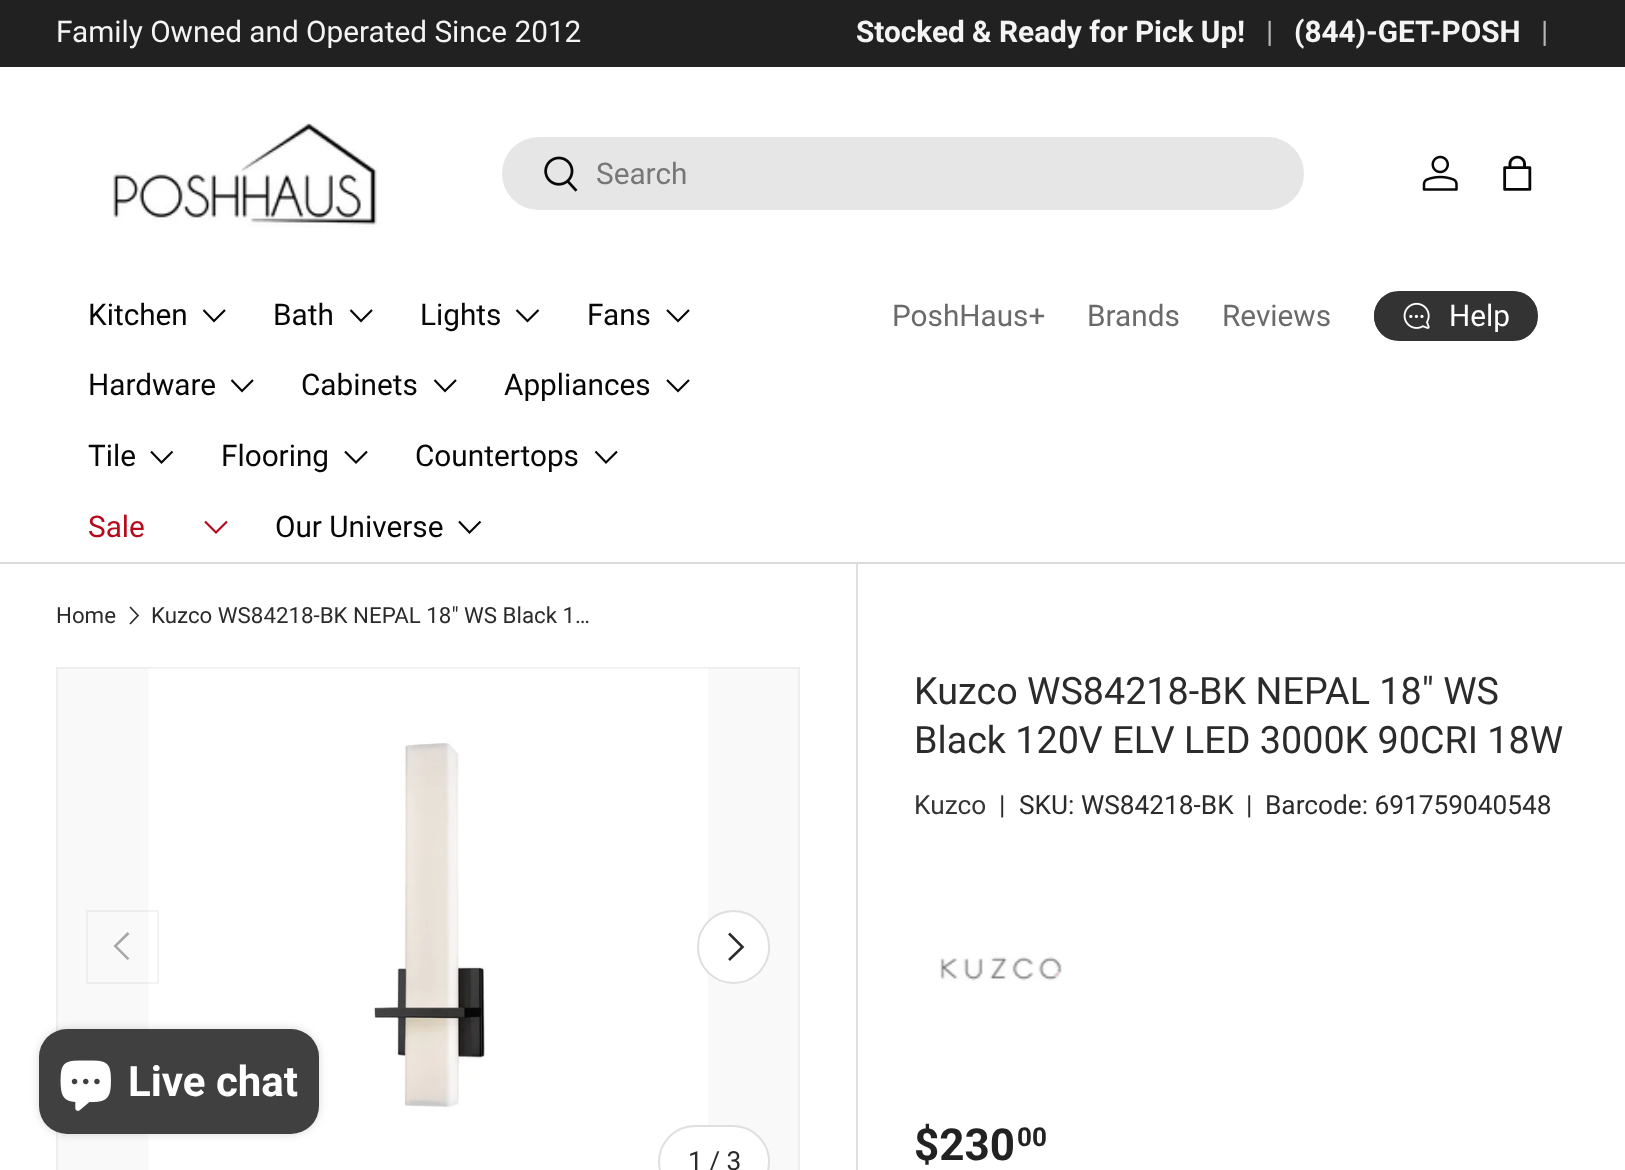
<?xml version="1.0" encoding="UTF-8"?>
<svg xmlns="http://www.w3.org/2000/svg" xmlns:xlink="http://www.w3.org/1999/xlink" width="1625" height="1170">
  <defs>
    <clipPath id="clip1"><rect x="1374" y="291" width="164" height="50" rx="25" /></clipPath>
    <linearGradient id="g1" gradientUnits="userSpaceOnUse" x1="1062" y1="258" x2="1528" y2="374"><stop offset="0.6" stop-color="#5a5a5a" /><stop offset="0.6" stop-color="#333333" /><stop offset="1" stop-color="#333333" /></linearGradient>
  </defs>
  <rect width="100%" height="100%" fill="#ffffff" />
  <rect width="1625" height="67" fill="#212121" />
  <rect y="562" width="1625" height="2" fill="#dadada" />
  <image x="113" y="123" width="267" height="105" xlink:href="image1.png" />
  <rect x="502" y="137" width="802" height="73" rx="36.5" fill="#e6e6e6" />
  <image x="544" y="156" width="34" height="36" xlink:href="image2.png" />
  <image x="1422" y="155" width="36" height="36" xlink:href="image3.png" />
  <image x="1503" y="155" width="29" height="36" xlink:href="image4.png" />
  <path d="M 225 310 l -11 11 l -10.5 -11" fill="none" stroke="#070707" stroke-width="2.2" />
  <path d="M 372 310 l -11 11 l -10.5 -11" fill="none" stroke="#070707" stroke-width="2.2" />
  <path d="M 538.5 310 l -11 11 l -11 -11" fill="none" stroke="#070707" stroke-width="2.2" />
  <path d="M 689 310 l -11 11 l -11 -11" fill="none" stroke="#070707" stroke-width="2.2" />
  <path d="M 253 380 l -11 11 l -10.5 -11" fill="none" stroke="#070707" stroke-width="2.2" />
  <path d="M 456 380 l -11 11 l -10.5 -11" fill="none" stroke="#070707" stroke-width="2.2" />
  <path d="M 689 380 l -11 11 l -11 -11" fill="none" stroke="#070707" stroke-width="2.2" />
  <path d="M 172.5 451.5 l -11 11 l -10.5 -11" fill="none" stroke="#070707" stroke-width="2.2" />
  <path d="M 367 451.5 l -11 11 l -11 -11" fill="none" stroke="#070707" stroke-width="2.2" />
  <path d="M 617 451.5 l -11 11 l -10.5 -11" fill="none" stroke="#070707" stroke-width="2.2" />
  <path d="M 227 521.5 l -11 11 l -11 -11" fill="none" stroke="#b40c1c" stroke-width="2.2" />
  <path d="M 480.5 521.5 l -11 11 l -10.5 -11" fill="none" stroke="#070707" stroke-width="2.2" />
  <g clip-path="url(#clip1)">
    <rect x="1374" y="292" width="163" height="48" fill="url(#g1)" />
  </g>
  <rect x="1375" y="292" width="162" height="48" rx="24" fill="none" stroke="#333333" stroke-width="2" />
  <image x="1403" y="302" width="27" height="27" xlink:href="image5.png" />
  <path d="M 130 607 l 8 8.5 l -8 8.5" fill="none" stroke="#2a2b2a" stroke-width="1.7" />
  <rect x="57" y="668" width="742" height="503" fill="none" stroke="#eeeeee" stroke-width="2" />
  <rect x="58" y="669" width="740" height="501" fill="#f9f9f9" />
  <image x="148" y="668" width="560" height="502" xlink:href="image6.png" />
  <rect x="87" y="911" width="71" height="72" fill="none" stroke="#2a2b2a" stroke-opacity="0.06" stroke-width="2" />
  <path d="M 113.5 946 l 14 -14 l 2 2 l -12.5 12 l 12.5 12.5 l -2 1.5 z" fill="#a6a7a6" />
  <rect x="697" y="910" width="73" height="74" rx="36.5" fill="#ffffff" />
  <rect x="698" y="911" width="71" height="72" rx="35.5" fill="none" stroke="#2a2b2a" stroke-opacity="0.15" stroke-width="2" />
  <path d="M 729 933.5 l 13.5 13.5 l -13.5 13" fill="none" stroke="#2a2b2a" stroke-width="2.6" />
  <rect x="658" y="1125" width="112" height="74" rx="37" fill="#ffffff" />
  <rect x="659" y="1126" width="110" height="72" rx="36" fill="none" stroke="#2a2b2a" stroke-opacity="0.15" stroke-width="2" />
  <rect x="856" y="564" width="2" height="606" fill="#dfdfdf" />
  <image x="940" y="952" width="122" height="29" xlink:href="image7.png" />
  <rect x="39" y="1029" width="280" height="105" rx="28" fill="#000000" fill-opacity="0.15" filter="blur(4.5px)" />
  <rect x="39" y="1029" width="280" height="105" rx="28" fill="#404040" />
  <image x="60" y="1060" width="51" height="51" xlink:href="image8.png" />
  <text x="56" y="42" style="font-family: Roboto; font-size: 29.75px; fill: #f4f4f4">Family Owned and Operated Since 2012</text>
  <text x="856" y="42" style="font-family: Roboto; font-size: 29.75px; font-weight: bold; fill: #f4f4f4">Stocked &amp; Ready for Pick Up!</text>
  <text x="1266" y="42" style="font-family: Roboto; font-size: 29.75px; fill: #b5b5b5">|</text>
  <text x="1294" y="42" style="font-family: Roboto; font-size: 29.75px; font-weight: bold; fill: #f4f4f4">(844)-GET-POSH</text>
  <text x="1541" y="42" style="font-family: Roboto; font-size: 29.75px; fill: #b5b5b5">|</text>
  <text x="596" y="184" style="font-family: Roboto; font-size: 29.75px; fill: #777777">Search</text>
  <text x="88" y="325" style="font-family: Roboto; font-size: 29.75px; fill: #070707">Kitchen</text>
  <text x="273" y="325" style="font-family: Roboto; font-size: 29.75px; fill: #070707">Bath</text>
  <text x="420" y="325" style="font-family: Roboto; font-size: 29.75px; fill: #070707">Lights</text>
  <text x="587" y="325" style="font-family: Roboto; font-size: 29.75px; fill: #070707">Fans</text>
  <text x="88" y="395" style="font-family: Roboto; font-size: 29.75px; fill: #070707">Hardware</text>
  <text x="301" y="395" style="font-family: Roboto; font-size: 29.75px; fill: #070707">Cabinets</text>
  <text x="504" y="395" style="font-family: Roboto; font-size: 29.75px; fill: #070707">Appliances</text>
  <text x="88" y="466" style="font-family: Roboto; font-size: 29.75px; fill: #070707">Tile</text>
  <text x="221" y="466" style="font-family: Roboto; font-size: 29.75px; fill: #070707">Flooring</text>
  <text x="415" y="466" style="font-family: Roboto; font-size: 29.75px; fill: #070707">Countertops</text>
  <text x="88" y="537" style="font-family: Roboto; font-size: 29.75px; fill: #b40c1c">Sale</text>
  <text x="275" y="537" style="font-family: Roboto; font-size: 29.75px; fill: #070707">Our Universe</text>
  <text x="892" y="326" style="font-family: Roboto; font-size: 29.75px; fill: #6a6a6a">PoshHaus+</text>
  <text x="1087" y="326" style="font-family: Roboto; font-size: 29.75px; fill: #6a6a6a">Brands</text>
  <text x="1222" y="326" style="font-family: Roboto; font-size: 29.75px; fill: #6a6a6a">Reviews</text>
  <text x="1449" y="326" style="font-family: Roboto; font-size: 29.75px; fill: #ffffff">Help</text>
  <text x="56" y="623" style="font-family: Roboto; font-size: 22.3px; fill: #2a2b2a">Home</text>
  <text x="151" y="623" style="font-family: Roboto; font-size: 22.3px; fill: #2a2b2a">Kuzco WS84218-BK NEPAL 18" WS Black 1…</text>
  <text x="688" y="1170" style="font-family: Roboto; font-size: 26.25px; fill: #2a2b2a">1 / 3</text>
  <text x="914" y="704" style="font-family: Roboto; font-size: 37.7px; fill: #2a2b2a">Kuzco WS84218-BK NEPAL 18" WS</text>
  <text x="914" y="753" style="font-family: Roboto; font-size: 37.7px; fill: #2a2b2a">Black 120V ELV LED 3000K 90CRI 18W</text>
  <text x="914" y="814" style="font-family: Roboto; font-size: 26.25px; fill: #353535">Kuzco</text>
  <text x="999" y="814" style="font-family: Roboto; font-size: 26.25px; fill: #2a2b2a">|</text>
  <text x="1019" y="814" style="font-family: Roboto; font-size: 26.25px; fill: #2a2b2a">SKU: WS84218-BK</text>
  <text x="1246" y="814" style="font-family: Roboto; font-size: 26.25px; fill: #2a2b2a">|</text>
  <text x="1265" y="814" style="font-family: Roboto; font-size: 26.25px; fill: #2a2b2a">Barcode: 691759040548</text>
  <text x="914" y="1160" style="font-family: Roboto; font-size: 44px; font-weight: bold; fill: #222222">$230</text>
  <text x="1017" y="1146" style="font-family: Roboto; font-size: 26px; font-weight: bold; fill: #222222">00</text>
  <text x="128" y="1096" style="font-family: Roboto; font-size: 42px; font-weight: bold; fill: #ffffff">Live chat</text>
</svg>
